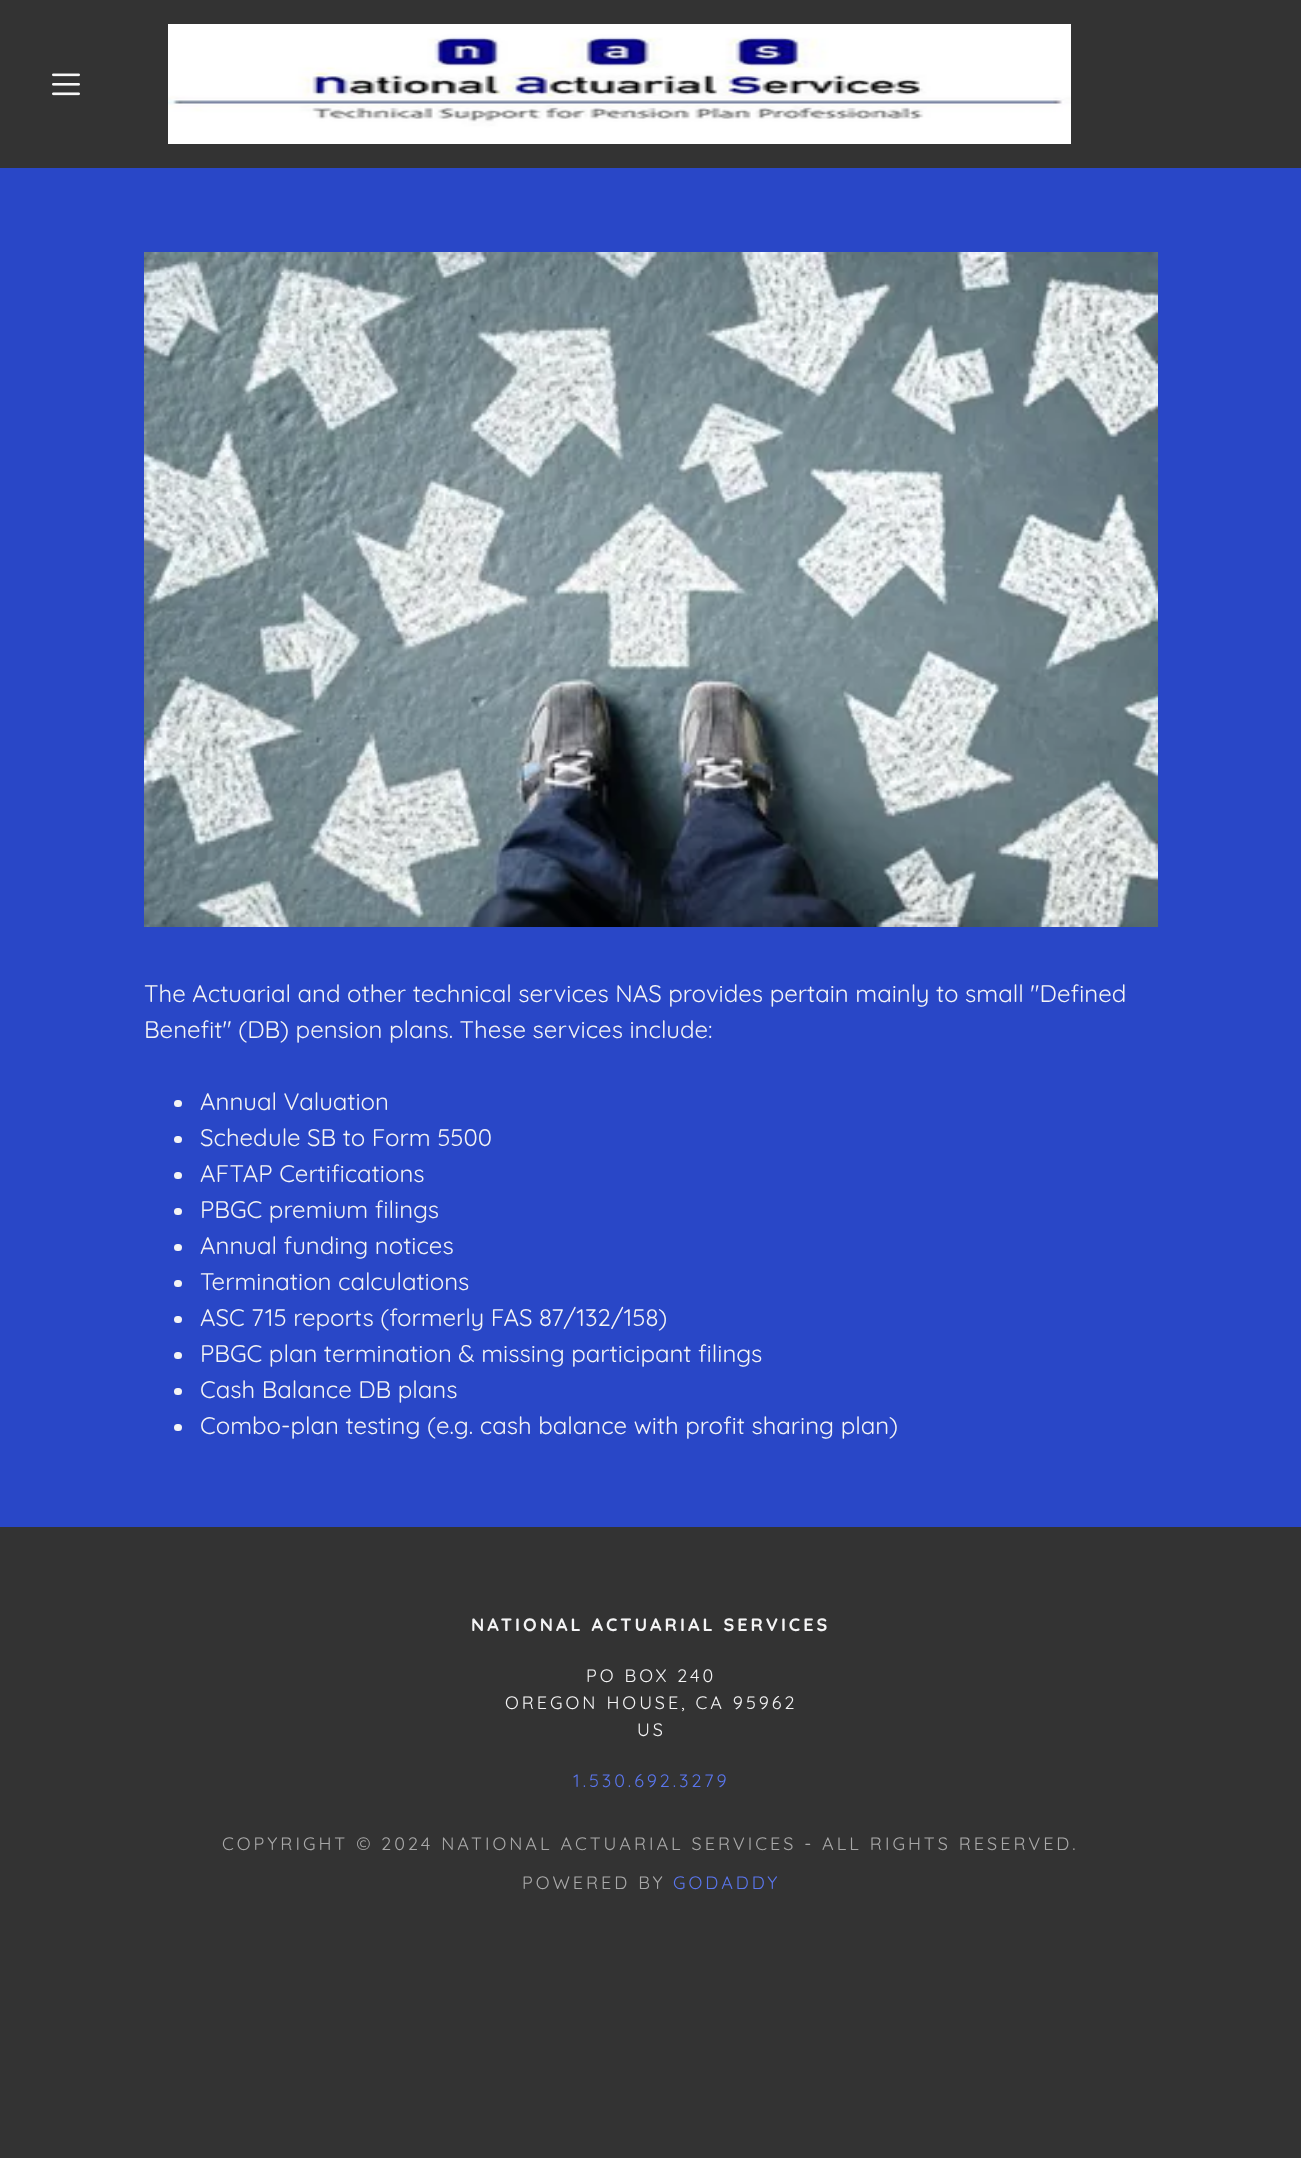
<?xml version="1.0" encoding="UTF-8"?>
<svg xmlns="http://www.w3.org/2000/svg" xmlns:xlink="http://www.w3.org/1999/xlink" width="1301" height="2158">
  <rect width="100%" height="100%" fill="#333333" />
  <image x="52" y="73" width="28" height="23" xlink:href="image1.png" />
  <image x="168" y="24" width="903" height="120" xlink:href="image2.png" />
  <rect y="168" width="1301" height="1359" fill="#2947c7" />
  <image x="144" y="252" width="1014" height="675" xlink:href="image3.png" />
  <rect x="174" y="1100" width="8" height="7" rx="3.5" fill="#f4f4f5" />
  <rect x="174" y="1136" width="8" height="7" rx="3.5" fill="#f4f4f5" />
  <rect x="174" y="1172" width="8" height="7" rx="3.5" fill="#f4f4f5" />
  <rect x="174" y="1208" width="8" height="7" rx="3.5" fill="#f4f4f5" />
  <rect x="174" y="1244" width="8" height="7" rx="3.5" fill="#f4f4f5" />
  <rect x="174" y="1280" width="8" height="7" rx="3.5" fill="#f4f4f5" />
  <rect x="174" y="1316" width="8" height="7" rx="3.5" fill="#f4f4f5" />
  <rect x="174" y="1352" width="8" height="7" rx="3.5" fill="#f4f4f5" />
  <rect x="174" y="1388" width="8" height="7" rx="3.5" fill="#f4f4f5" />
  <rect x="174" y="1424" width="8" height="7" rx="3.5" fill="#f4f4f5" />
  <text x="144" y="1002" style="font-family: Quicksand; font-size: 24px; fill: #f4f4f5">The Actuarial and other technical services NAS provides pertain mainly to small "Defined</text>
  <text x="144" y="1038" style="font-family: Quicksand; font-size: 24px; fill: #f4f4f5">Benefit" (DB) pension plans. These services include:</text>
  <text x="200" y="1110" style="font-family: Quicksand; font-size: 24px; fill: #f4f4f5">Annual Valuation</text>
  <text x="200" y="1146" style="font-family: Quicksand; font-size: 24px; fill: #f4f4f5">Schedule SB to Form 5500</text>
  <text x="200" y="1182" style="font-family: Quicksand; font-size: 24px; fill: #f4f4f5">AFTAP Certifications</text>
  <text x="200" y="1218" style="font-family: Quicksand; font-size: 24px; fill: #f4f4f5">PBGC premium filings</text>
  <text x="200" y="1254" style="font-family: Quicksand; font-size: 24px; fill: #f4f4f5">Annual funding notices</text>
  <text x="200" y="1290" style="font-family: Quicksand; font-size: 24px; fill: #f4f4f5">Termination calculations</text>
  <text x="200" y="1326" style="font-family: Quicksand; font-size: 24px; fill: #f4f4f5">ASC 715 reports (formerly FAS 87/132/158)</text>
  <text x="200" y="1362" style="font-family: Quicksand; font-size: 24px; fill: #f4f4f5">PBGC plan termination &amp; missing participant filings</text>
  <text x="200" y="1398" style="font-family: Quicksand; font-size: 24px; fill: #f4f4f5">Cash Balance DB plans</text>
  <text x="200" y="1434" style="font-family: Quicksand; font-size: 24px; fill: #f4f4f5">Combo-plan testing (e.g. cash balance with profit sharing plan)</text>
  <text x="471" y="1631" style="font-family: Quicksand; font-size: 18px; font-weight: bold; letter-spacing: 3px; fill: #f4f4f5">NATIONAL ACTUARIAL SERVICES</text>
  <text x="586" y="1682" style="font-family: Quicksand; font-size: 18px; letter-spacing: 3px; fill: #f4f4f5">PO BOX 240</text>
  <text x="505" y="1709" style="font-family: Quicksand; font-size: 18px; letter-spacing: 3px; fill: #f4f4f5">OREGON HOUSE, CA 95962</text>
  <text x="637" y="1736" style="font-family: Quicksand; font-size: 18px; letter-spacing: 3px; fill: #f4f4f5">US</text>
  <text x="573" y="1787" style="font-family: Quicksand; font-size: 18px; letter-spacing: 3px; fill: #5a76ed">1.530.692.3279</text>
  <text x="222" y="1850" style="font-family: Quicksand; font-size: 18px; letter-spacing: 3px; fill: #a9a9a9">COPYRIGHT © 2024 NATIONAL ACTUARIAL SERVICES - ALL RIGHTS RESERVED.</text>
  <text x="522" y="1889" style="font-family: Quicksand; font-size: 18px; letter-spacing: 3px; fill: #a9a9a9">POWERED BY</text>
  <text x="673" y="1889" style="font-family: Quicksand; font-size: 18px; letter-spacing: 3px; fill: #5a76ed">GODADDY</text>
</svg>
